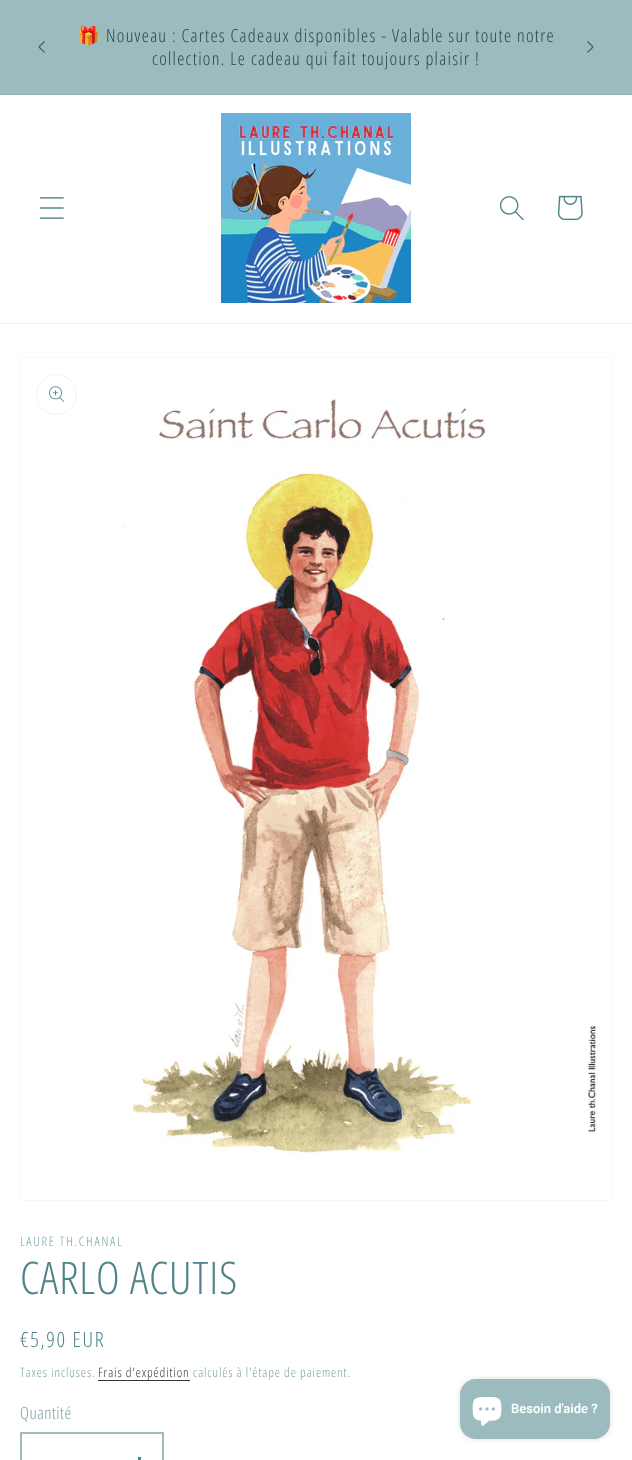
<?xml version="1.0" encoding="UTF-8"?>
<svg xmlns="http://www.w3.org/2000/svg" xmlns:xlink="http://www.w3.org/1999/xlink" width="632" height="1460">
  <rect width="100%" height="100%" fill="#ffffff" />
  <rect width="632" height="94" fill="#9bbbbe" />
  <rect y="94" width="632" height="1" fill="#92b2b5" />
  <image x="38" y="41" width="7" height="12" xlink:href="image1.png" />
  <image x="587" y="41" width="7" height="12" xlink:href="image2.png" />
  <rect y="323" width="632" height="1" fill="#f1f5f5" />
  <image x="39" y="197" width="25" height="22" xlink:href="image3.png" />
  <image x="221" y="113" width="190" height="190" xlink:href="image4.png" />
  <image x="499" y="196" width="25" height="25" xlink:href="image5.png" />
  <image x="557" y="195" width="26" height="26" xlink:href="image6.png" />
  <rect x="20.5" y="357.5" width="592" height="843" fill="none" stroke="#f6f9f9" />
  <circle cx="56.5" cy="394.5" r="20" fill="none" stroke="#eef3f3" />
  <image x="49" y="386" width="15" height="16" xlink:href="image7.png" />
  <image x="122" y="399" width="476" height="767" xlink:href="image8.png" />
  <rect x="98" y="1380" width="92" height="1" fill="#363636" />
  <rect x="138" y="1457" width="3" height="3" fill="#508387" />
  <rect x="21" y="1433" width="142" height="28" fill="none" stroke="#9fbbbd" stroke-width="2" />
  <rect x="460" y="1379" width="150" height="60" rx="16" fill="#000000" fill-opacity="0.15" filter="blur(2.5px)" />
  <rect x="460" y="1379" width="150" height="60" rx="16" fill="#9bbbbe" />
  <image x="472" y="1397" width="30" height="29" xlink:href="image9.png" />
  <text x="77" y="42" style="font-family: Noto Color Emoji; font-size: 18px; letter-spacing: 1.3px; fill: #294749">🎁</text>
  <text x="106" y="42" style="font-family: Open Sans Condensed; font-size: 18px; font-weight: 300; letter-spacing: 1.3px; fill: #294749">Nouveau : Cartes Cadeaux disponibles - Valable sur toute notre</text>
  <text x="152" y="65" style="font-family: Open Sans Condensed; font-size: 18px; font-weight: 300; letter-spacing: 1.3px; fill: #294749">collection. Le cadeau qui fait toujours plaisir !</text>
  <text x="20" y="1246" style="font-family: Open Sans Condensed; font-size: 13px; font-weight: 300; letter-spacing: 1.75px; fill: #7ca2a5">LAURE TH.CHANAL</text>
  <text x="20" y="1294" style="font-family: Open Sans Condensed; font-size: 45px; font-weight: 300; letter-spacing: 0.9px; fill: #508387">CARLO ACUTIS</text>
  <text x="20" y="1347" style="font-family: Open Sans Condensed; font-size: 21px; font-weight: 300; letter-spacing: 1.75px; fill: #508387">€5,90 EUR</text>
  <text x="20" y="1377" style="font-family: Open Sans Condensed; font-size: 13px; font-weight: 300; letter-spacing: 0.9px; fill: #7ca2a5">Taxes incluses.</text>
  <text x="98" y="1377" style="font-family: Open Sans Condensed; font-size: 13px; font-weight: 300; letter-spacing: 0.9px; fill: #353535">Frais d'expédition</text>
  <text x="193" y="1377" style="font-family: Open Sans Condensed; font-size: 13px; font-weight: 300; letter-spacing: 0.9px; fill: #7ca2a5">calculés à l'étape de paiement.</text>
  <text x="20" y="1419" style="font-family: Open Sans Condensed; font-size: 17px; font-weight: 300; letter-spacing: 0.5px; fill: #7ca2a5">Quantité</text>
  <text x="511" y="1413" style="font-family: Roboto; font-size: 13px; font-weight: 600; fill: #ffffff">Besoin d'aide ?</text>
</svg>
